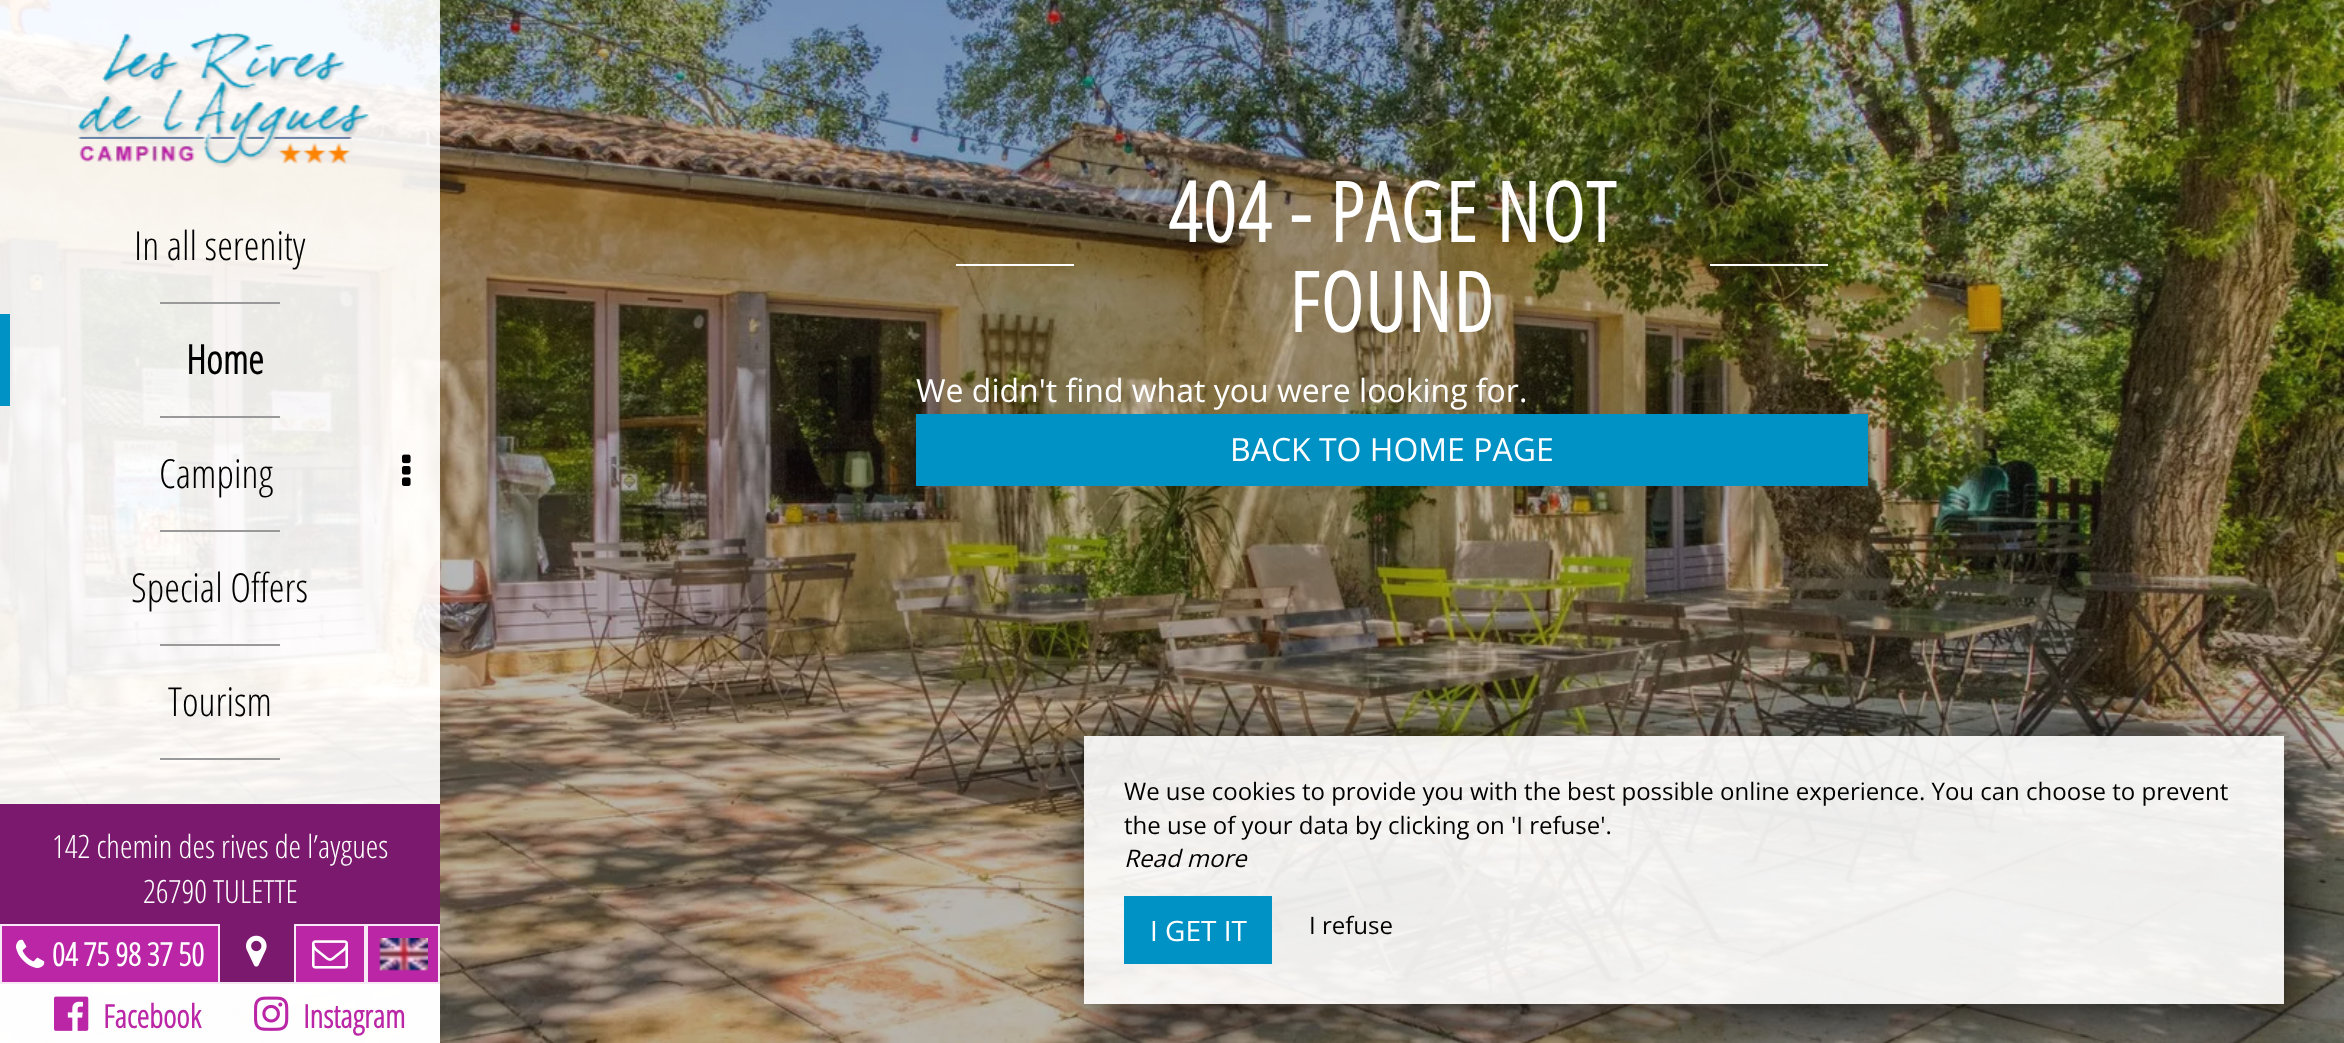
<?xml version="1.0" encoding="UTF-8"?>
<svg xmlns="http://www.w3.org/2000/svg" xmlns:xlink="http://www.w3.org/1999/xlink" width="2344" height="1043">
  <defs>
    <clipPath id="clip1"><path d="M 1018 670 h 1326 v 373 h -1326 z m 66 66 h 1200 v 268 h -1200 z" clip-rule="evenodd" /></clipPath>
  </defs>
  <rect width="100%" height="100%" fill="#ffffff" />
  <image x="0" y="0" width="2344" height="1043" xlink:href="image9.png" />
  <rect width="440" height="1043" fill="#ffffff" fill-opacity="0.9" />
  <image x="78" y="32" width="292" height="136" xlink:href="image1.png" />
  <rect x="160" y="302" width="120" height="2" fill="#999999" />
  <rect y="314" width="10" height="92" fill="#0092c4" />
  <rect x="160" y="416" width="120" height="2" fill="#999999" />
  <image x="402" y="454" width="9" height="32" xlink:href="image2.png" />
  <rect x="160" y="530" width="120" height="2" fill="#999999" />
  <rect x="160" y="644" width="120" height="2" fill="#999999" />
  <rect x="160" y="758" width="120" height="2" fill="#999999" />
  <rect y="804" width="440" height="120" fill="#7a196d" />
  <rect x="1" y="925" width="218" height="58" fill="#ba26a5" stroke="#f8e9f6" stroke-width="2" />
  <image x="16" y="939" width="29" height="29" xlink:href="image3.png" />
  <rect x="220" y="924" width="74" height="58" fill="#7a196d" />
  <rect x="220" y="982" width="74" height="2" fill="#f2e8f0" />
  <image x="246" y="935" width="21" height="32" xlink:href="image4.png" />
  <rect x="295" y="925" width="70" height="58" fill="#ba26a5" stroke="#f8e9f6" stroke-width="2" />
  <image x="312" y="940" width="36" height="29" xlink:href="image5.png" />
  <rect x="367" y="925" width="72" height="58" fill="#ba26a5" stroke="#f8e9f6" stroke-width="2" />
  <image x="379" y="938" width="49" height="33" xlink:href="image6.png" />
  <rect y="984" width="440" height="59" fill="#ffffff" fill-opacity="0.9" />
  <image x="54" y="996" width="35" height="35" xlink:href="image7.png" />
  <image x="254" y="996" width="35" height="35" xlink:href="image8.png" />
  <rect x="440" width="1904" height="1043" fill="#141414" fill-opacity="0.3" />
  <rect x="956" y="264" width="118" height="2" fill="#ffffff" />
  <rect x="1710" y="264" width="118" height="2" fill="#ffffff" />
  <rect x="916" y="414" width="952" height="72" fill="#0092c4" />
  <g clip-path="url(#clip1)">
    <rect x="1094" y="746" width="1200" height="268" fill="#000000" fill-opacity="0.8" filter="blur(25px)" />
  </g>
  <rect x="1084" y="736" width="1200" height="268" fill="#ffffff" fill-opacity="0.9" />
  <rect x="1124" y="896" width="148" height="68" fill="#0092c4" />
  <text x="134" y="260" style="font-family: Open Sans Condensed; font-size: 40px; font-weight: 300; fill: #000000">In all serenity</text>
  <text x="186" y="374" style="font-family: Open Sans Condensed; font-size: 40px; font-weight: bold; fill: #000000">Home</text>
  <text x="159" y="488" style="font-family: Open Sans Condensed; font-size: 40px; font-weight: 300; fill: #000000">Camping</text>
  <text x="131" y="602" style="font-family: Open Sans Condensed; font-size: 40px; font-weight: 300; fill: #000000">Special Offers</text>
  <text x="168" y="716" style="font-family: Open Sans Condensed; font-size: 40px; font-weight: 300; fill: #000000">Tourism</text>
  <text x="52" y="858" style="font-family: Open Sans Condensed; font-size: 32px; font-weight: 300; fill: #ffffff">142 chemin des rives de l’aygues</text>
  <text x="143" y="903" style="font-family: Open Sans Condensed; font-size: 32px; font-weight: 300; fill: #ffffff">26790 TULETTE</text>
  <text x="52" y="966" style="font-family: Open Sans Condensed; font-size: 32px; font-weight: bold; fill: #ffffff">04 75 98 37 50</text>
  <text x="103" y="1028" style="font-family: Open Sans Condensed; font-size: 32px; font-weight: bold; fill: #ba26a5">Facebook</text>
  <text x="303" y="1028" style="font-family: Open Sans Condensed; font-size: 32px; font-weight: bold; fill: #ba26a5">Instagram</text>
  <text x="1168" y="242" style="font-family: Open Sans Condensed; font-size: 82px; font-weight: bold; letter-spacing: 2px; fill: #ffffff">404 - PAGE NOT</text>
  <text x="1289" y="332" style="font-family: Open Sans Condensed; font-size: 82px; font-weight: bold; letter-spacing: 2px; fill: #ffffff">FOUND</text>
  <text x="916" y="402" style="font-family: Open Sans; font-size: 32px; fill: #ffffff">We didn't find what you were looking for.</text>
  <text x="1230" y="461" style="font-family: Open Sans; font-size: 32px; fill: #ffffff">BACK TO HOME PAGE</text>
  <text x="1124" y="800" style="font-family: Open Sans; font-size: 24px; fill: #000000">We use cookies to provide you with the best possible online experience. You can choose to prevent</text>
  <text x="1124" y="834" style="font-family: Open Sans; font-size: 24px; fill: #000000">the use of your data by clicking on 'I refuse'.</text>
  <text x="1124" y="867" style="font-family: Open Sans; font-size: 24px; font-style: italic; fill: #000000">Read more</text>
  <text x="1150" y="941" style="font-family: Open Sans; font-size: 28px; fill: #ffffff">I GET IT</text>
  <text x="1309" y="934" style="font-family: Open Sans; font-size: 24px; fill: #000000">I refuse</text>
</svg>
